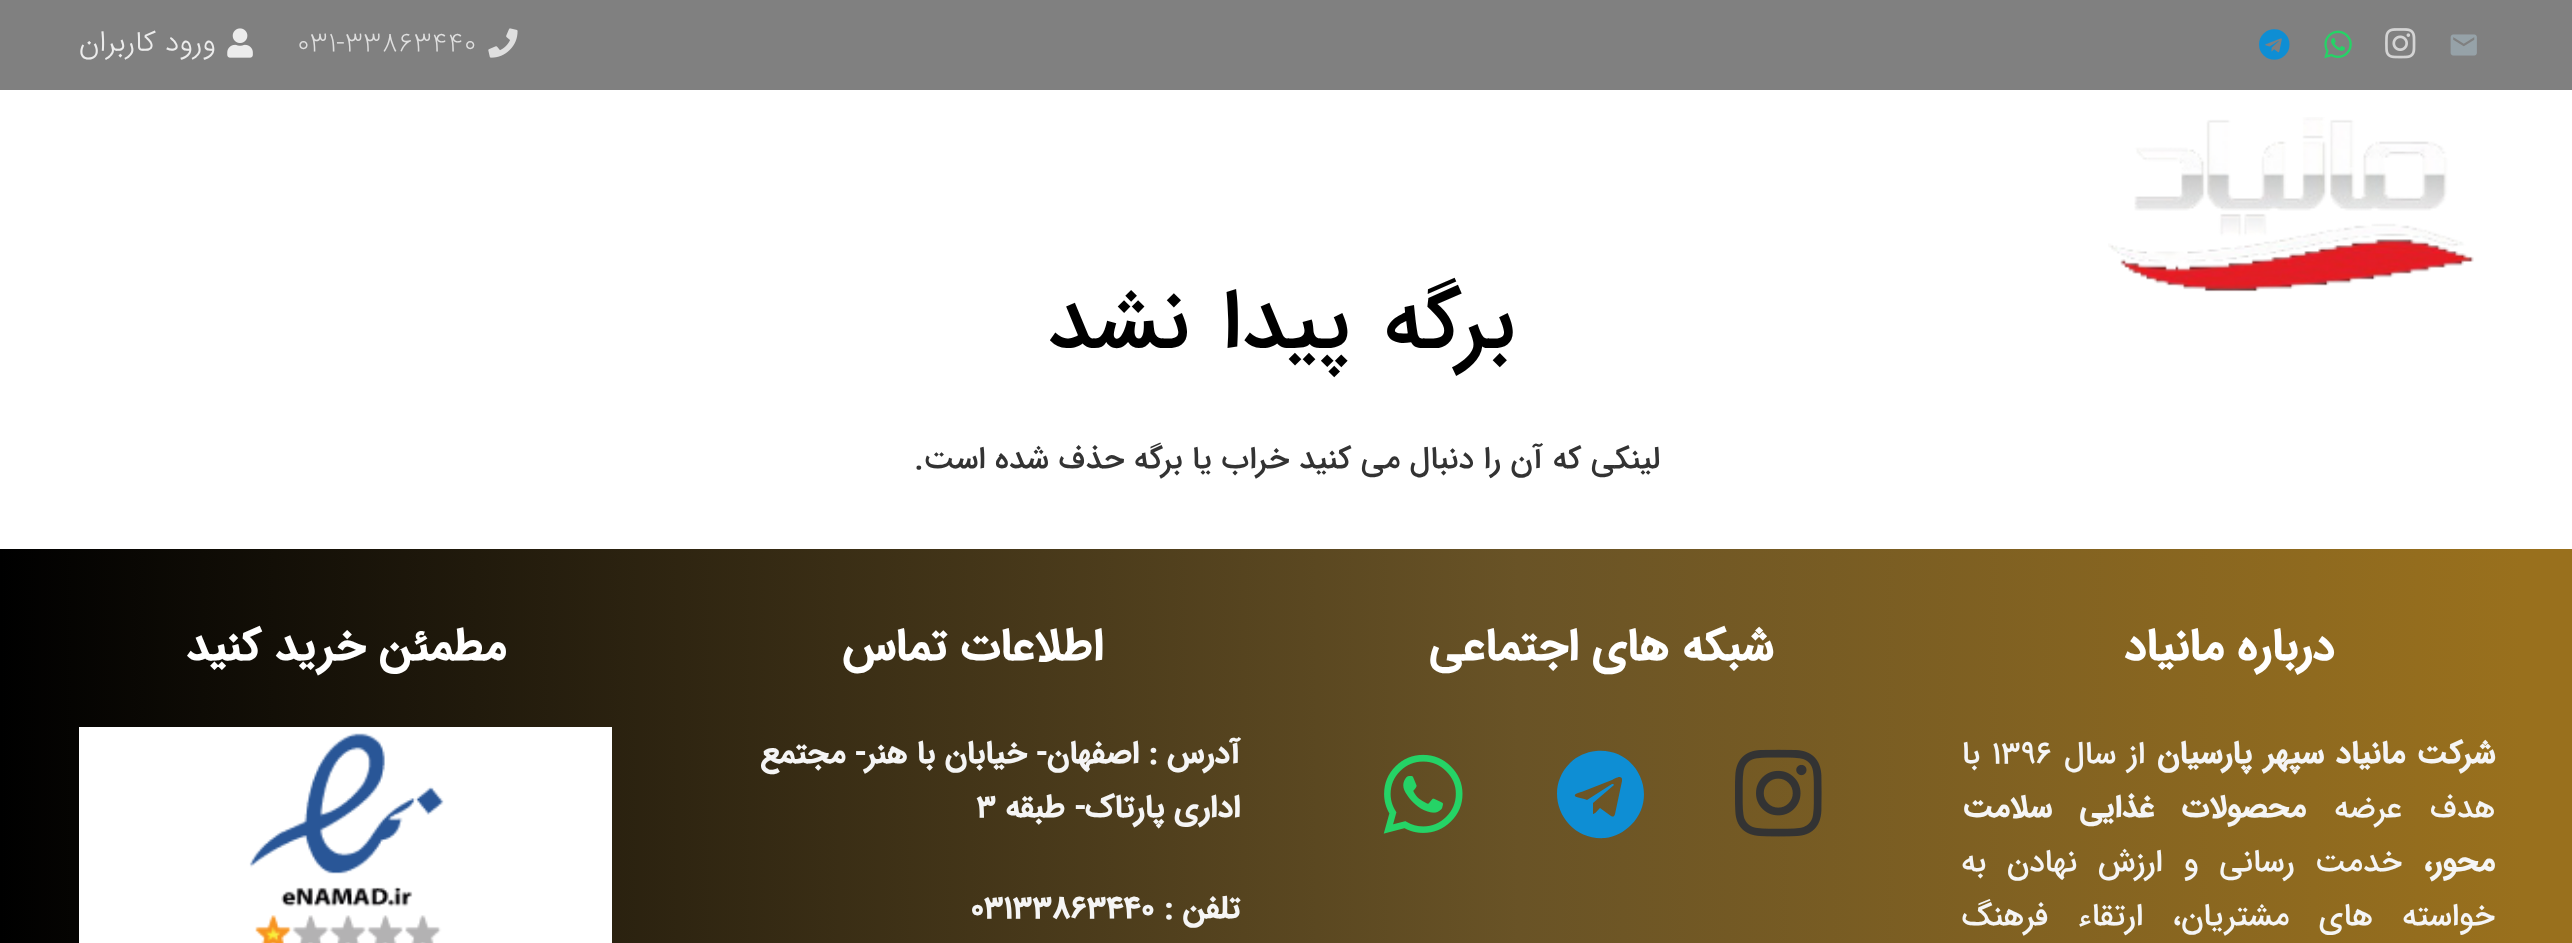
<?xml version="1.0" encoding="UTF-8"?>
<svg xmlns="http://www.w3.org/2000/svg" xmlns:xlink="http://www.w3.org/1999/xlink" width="2572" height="943">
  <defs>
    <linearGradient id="g1" gradientUnits="userSpaceOnUse" x1="0" y1="899" x2="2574" y2="899"><stop offset="0" stop-color="#7b00ff" /><stop offset="0" stop-color="#000000" /><stop offset="0.59" stop-color="#695326" /><stop offset="0.98" stop-color="#99701d" /></linearGradient>
  </defs>
  <rect width="100%" height="100%" fill="#ffffff" />
  <rect width="2572" height="90" fill="#808080" />
  <image x="2450" y="34" width="27" height="22" xlink:href="image1.png" />
  <image x="2385" y="28" width="31" height="31" xlink:href="image2.png" />
  <image x="2324" y="30" width="28" height="29" xlink:href="image3.png" />
  <image x="2259" y="29" width="31" height="31" xlink:href="image4.png" />
  <image x="488" y="28" width="30" height="30" xlink:href="image5.png" />
  <image x="227" y="28" width="26" height="30" xlink:href="image6.png" />
  <image x="2108" y="117" width="366" height="175" xlink:href="image7.png" />
  <rect y="549" width="2572" height="394" fill="url(#g1)" />
  <image x="1735" y="749" width="87" height="88" xlink:href="image8.png" />
  <path d="M 1570 763 c 7 -7 16 -11 26 -12 c 41 -4 64 45 35 74 c -7 7 -16 12 -26 13 c -41 3 -64 -46 -35 -75 z m 52 18 c 1 -8 -8 -2 -10 -1 l -28 11 c -6 2 -10 3 -9 5 c 0 1 10 3 12 4 l 25 -16 c 1 0 2 0 2 1 l -21 18 v 11 c 2 0 5 -4 7 -6 l 11 8 c 2 1 3 1 4 -2 z" fill="#0e8ed4" />
  <image x="1383" y="754" width="80" height="80" xlink:href="image9.png" />
  <rect x="79" y="727" width="533" height="216" fill="#ffffff" />
  <image x="249" y="733" width="195" height="210" xlink:href="image10.png" />
  <text x="297" y="52" style="font-family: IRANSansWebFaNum; font-size: 29.25px; font-weight: 200; fill: #dfdfdf">۰۳۱-۳۳۸۶۳۴۴۰</text>
  <text x="216" y="51" style="font-family: IRANSansWebFaNum; font-size: 29.25px; font-weight: 300; direction: rtl; fill: #ececec">ورود کاربران</text>
  <text x="1515" y="347" word-spacing="6" style="font-family: IRANSansWebFaNum; font-size: 85.5px; font-weight: 500; letter-spacing: -0.8px; direction: rtl; fill: #000000">برگه پیدا نشد</text>
  <text x="1660" y="468" style="font-family: IRANSansWebFaNum; font-size: 31.5px; font-weight: 500; direction: rtl; fill: #333333">لینکی که آن را دنبال می کنید خراب یا برگه حذف شده است.</text>
  <text x="2334" y="660" style="font-family: IRANSansWebFaNum; font-size: 45px; font-weight: bold; direction: rtl; fill: #ffffff">درباره مانیاد</text>
  <text x="2495" y="763" word-spacing="2" style="font-family: IRANSansWebFaNum; font-size: 31.5px; font-weight: bold; direction: rtl; fill: #f5f5f5">شرکت مانیاد سپهر پارسیان</text>
  <text x="2145" y="763" word-spacing="2" style="font-family: IRANSansWebFaNum; font-size: 31.5px; font-weight: 500; direction: rtl; fill: #f5f5f5">از سال</text>
  <text x="1992" y="763" style="font-family: IRANSansWebFaNum; font-size: 31.5px; font-weight: 500; fill: #f5f5f5">۱۳۹۶</text>
  <text x="1980" y="763" style="font-family: IRANSansWebFaNum; font-size: 31.5px; font-weight: 500; direction: rtl; fill: #f5f5f5">با</text>
  <text x="2495" y="817" word-spacing="18" style="font-family: IRANSansWebFaNum; font-size: 31.5px; font-weight: 500; direction: rtl; fill: #f5f5f5">هدف عرضه</text>
  <text x="2306" y="817" word-spacing="18" style="font-family: IRANSansWebFaNum; font-size: 31.5px; font-weight: bold; direction: rtl; fill: #f5f5f5">محصولات غذایی سلامت</text>
  <text x="2495" y="871" style="font-family: IRANSansWebFaNum; font-size: 31.5px; font-weight: bold; direction: rtl; fill: #f5f5f5">محور،</text>
  <text x="2402" y="871" word-spacing="11.5" style="font-family: IRANSansWebFaNum; font-size: 31.5px; font-weight: 500; direction: rtl; fill: #f5f5f5">خدمت رسانی و ارزش نهادن به</text>
  <text x="2495" y="925" word-spacing="20" style="font-family: IRANSansWebFaNum; font-size: 31.5px; font-weight: 500; direction: rtl; fill: #f5f5f5">خواسته های مشتریان، ارتقاء فرهنگ</text>
  <text x="1773" y="660" style="font-family: IRANSansWebFaNum; font-size: 45px; font-weight: bold; direction: rtl; fill: #ffffff">شبکه های اجتماعی</text>
  <text x="1103" y="660" style="font-family: IRANSansWebFaNum; font-size: 45px; font-weight: bold; direction: rtl; fill: #ffffff">اطلاعات تماس</text>
  <text x="1240" y="763" style="font-family: IRANSansWebFaNum; font-size: 31.5px; font-weight: bold; direction: rtl; fill: #f5f5f5">آدرس : اصفهان- خیابان با هنر- مجتمع</text>
  <text x="1240" y="817" style="font-family: IRANSansWebFaNum; font-size: 31.5px; font-weight: bold; direction: rtl; fill: #f5f5f5">اداری پارتاک- طبقه</text>
  <text x="976" y="817" style="font-family: IRANSansWebFaNum; font-size: 31.5px; font-weight: bold; fill: #f5f5f5">۳</text>
  <text x="1240" y="918" style="font-family: IRANSansWebFaNum; font-size: 31.5px; font-weight: bold; direction: rtl; fill: #f5f5f5">تلفن :</text>
  <text x="970" y="918" style="font-family: IRANSansWebFaNum; font-size: 31.5px; font-weight: bold; fill: #f5f5f5">۰۳۱۳۳۸۶۳۴۴۰</text>
  <text x="506" y="660" style="font-family: IRANSansWebFaNum; font-size: 45px; font-weight: bold; direction: rtl; fill: #ffffff">مطمئن خرید کنید</text>
</svg>
